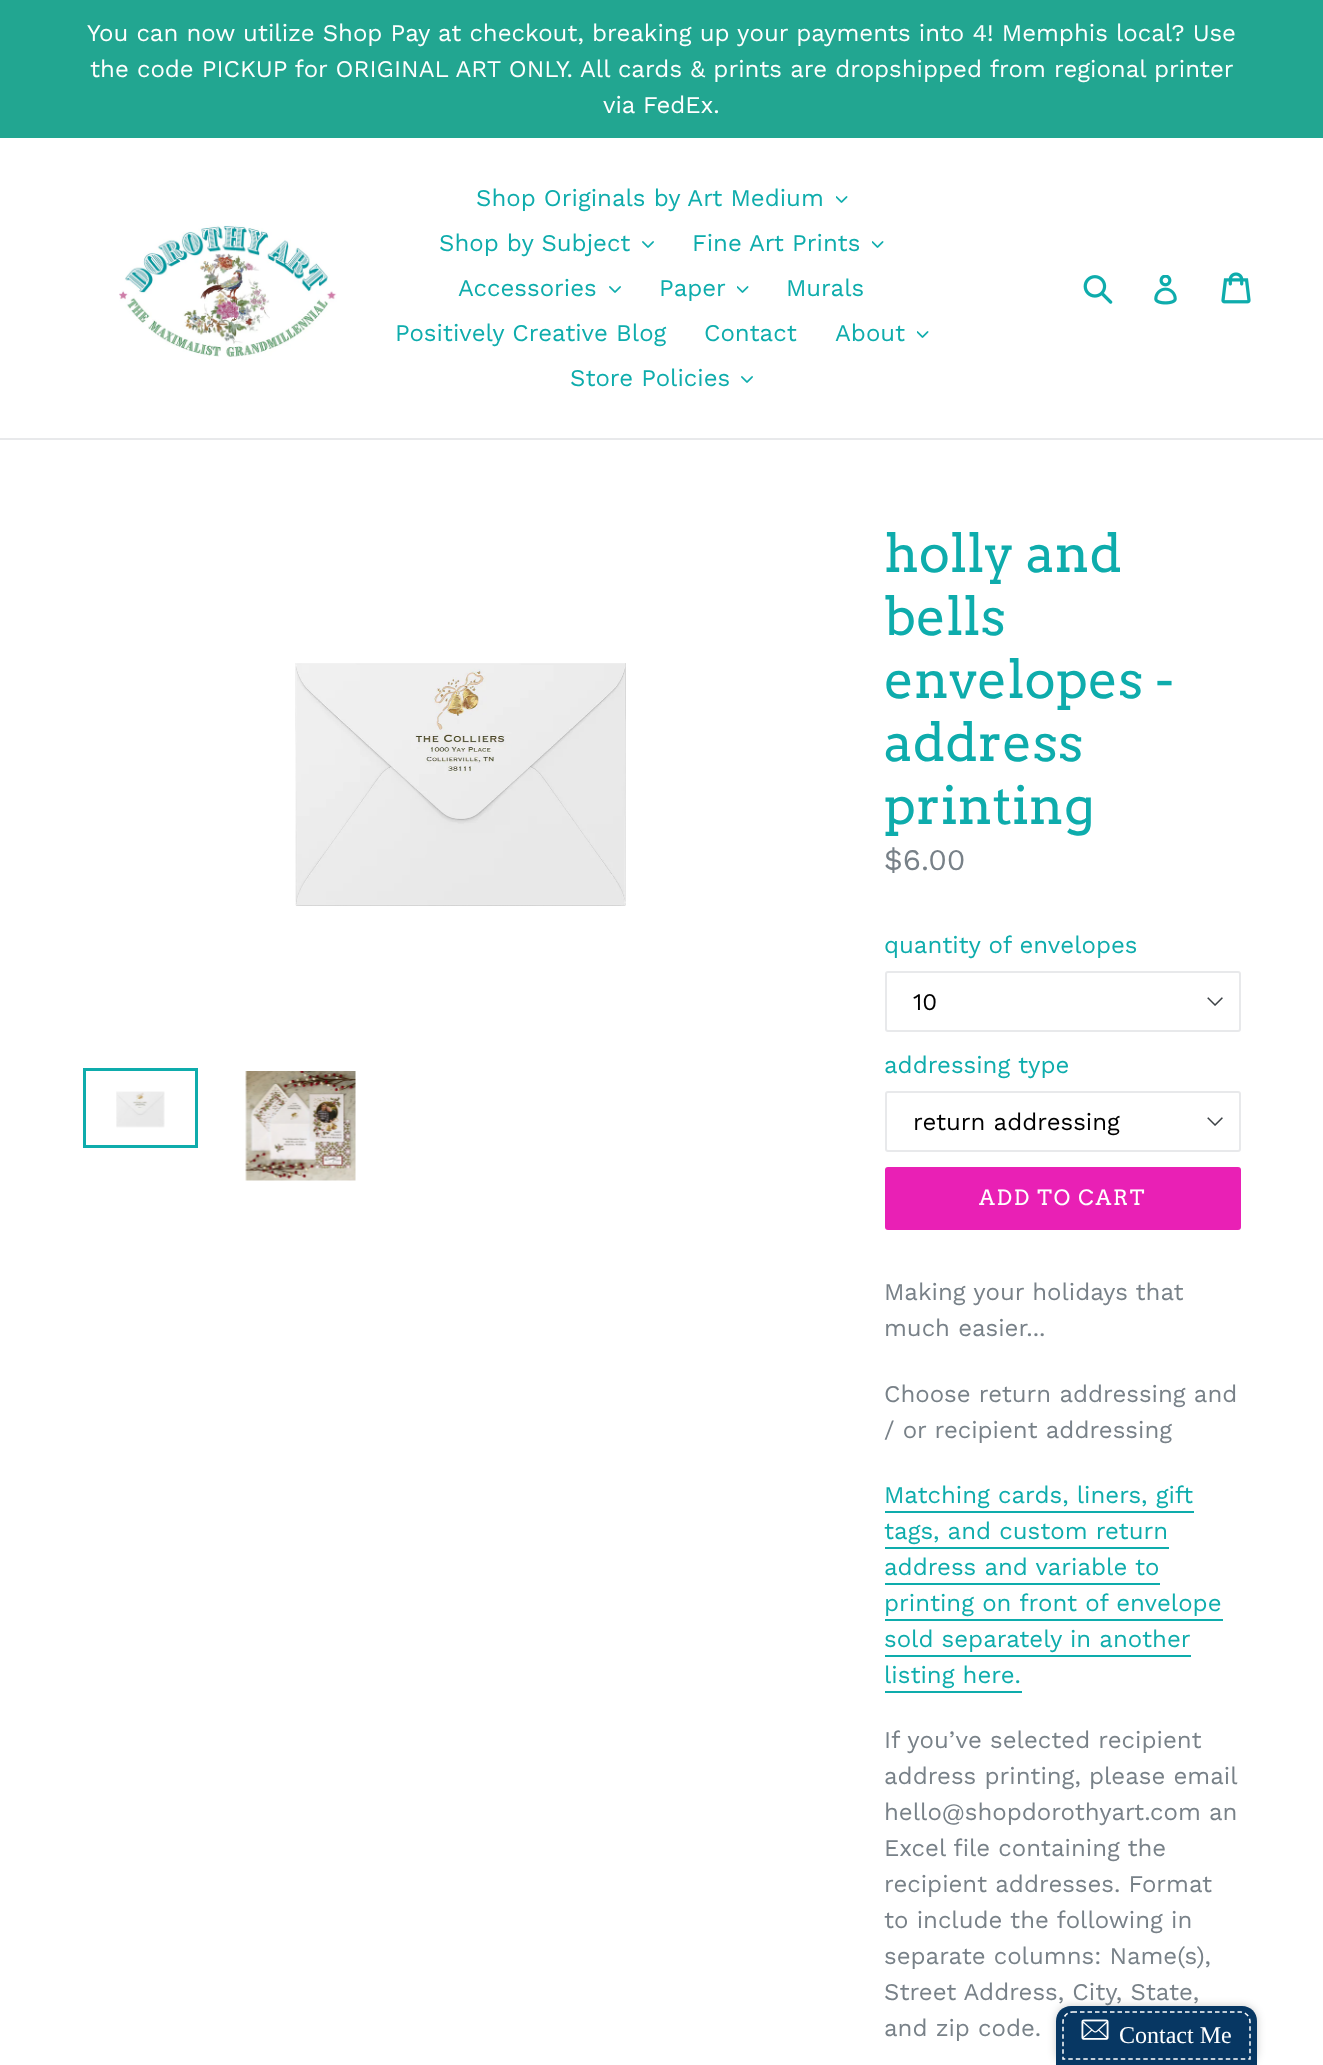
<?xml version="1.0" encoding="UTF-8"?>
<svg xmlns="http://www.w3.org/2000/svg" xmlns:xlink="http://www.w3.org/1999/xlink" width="1323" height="2065">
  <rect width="100%" height="100%" fill="#ffffff" />
  <rect width="1323" height="138" fill="#22a691" />
  <rect y="438" width="1323" height="2" fill="#e8e9eb" />
  <image x="119" y="225" width="218" height="132" xlink:href="image1.png" />
  <image x="836" y="196" width="12" height="7" xlink:href="image2.png" />
  <image x="642" y="241" width="12" height="7" xlink:href="image3.png" />
  <image x="872" y="241" width="12" height="7" xlink:href="image2.png" />
  <image x="609" y="286" width="12" height="7" xlink:href="image3.png" />
  <image x="737" y="286" width="12" height="7" xlink:href="image2.png" />
  <image x="917" y="331" width="12" height="7" xlink:href="image2.png" />
  <image x="741" y="376" width="12" height="7" xlink:href="image3.png" />
  <image x="1083" y="275" width="30" height="29" xlink:href="image4.png" />
  <image x="1154" y="275" width="23" height="30" xlink:href="image5.png" />
  <image x="1221" y="272" width="30" height="32" xlink:href="image6.png" />
  <image x="295" y="663" width="331" height="243" xlink:href="image7.png" />
  <rect x="84.5" y="1069.5" width="112" height="77" fill="none" stroke="#0eacac" stroke-width="3" />
  <image x="116" y="1091" width="49" height="37" xlink:href="image8.png" />
  <image x="245" y="1071" width="111" height="110" xlink:href="image9.png" />
  <image x="1207" y="997" width="16" height="9" xlink:href="image10.png" />
  <rect x="886" y="972" width="354" height="59" rx="2" fill="none" stroke="#e8e9eb" stroke-width="2" />
  <image x="1207" y="1117" width="16" height="9" xlink:href="image10.png" />
  <rect x="886" y="1092" width="354" height="59" rx="2" fill="none" stroke="#e8e9eb" stroke-width="2" />
  <rect x="885" y="1167" width="356" height="63" rx="3" fill="#e920b5" />
  <rect x="885" y="1511" width="309" height="2" fill="#0eacac" />
  <rect x="885" y="1547" width="284" height="2" fill="#0eacac" />
  <rect x="885" y="1583" width="275" height="2" fill="#0eacac" />
  <rect x="885" y="1619" width="338" height="2" fill="#0eacac" />
  <rect x="885" y="1655" width="306" height="2" fill="#0eacac" />
  <rect x="885" y="1691" width="137" height="2" fill="#0eacac" />
  <rect x="1056" y="2006" width="201" height="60" rx="15" fill="#000000" fill-opacity="0.2" filter="blur(4px)" />
  <path d="M 1071 2006 h 171 c 8.5 0 15 6.5 15 15 v 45 h -201 v -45 c 0 -8.5 6.5 -15 15 -15 z" fill="#073763" />
  <path d="M 1072.5 2012 h 168 c 5.5 0 9.5 4.5 9.5 10 v 37 h -187 v -37 c 0 -5.5 4 -10 9.5 -10 z" fill="none" stroke="#ffffff" stroke-width="1.5" stroke-dasharray="4.5 3" />
  <image x="1081" y="2019" width="28" height="21" xlink:href="image11.png" />
  <text x="87" y="41" style="font-family: Work Sans; font-size: 24px; fill: #ffffff">You can now utilize Shop Pay at checkout, breaking up your payments into 4! Memphis local? Use</text>
  <text x="90" y="77" style="font-family: Work Sans; font-size: 24px; fill: #ffffff">the code PICKUP for ORIGINAL ART ONLY. All cards &amp; prints are dropshipped from regional printer</text>
  <text x="603" y="113" style="font-family: Work Sans; font-size: 24px; fill: #ffffff">via FedEx.</text>
  <text x="476" y="206" style="font-family: Work Sans; font-size: 24px; fill: #0eacac">Shop Originals by Art Medium</text>
  <text x="439" y="251" style="font-family: Work Sans; font-size: 24px; fill: #0eacac">Shop by Subject</text>
  <text x="692" y="251" style="font-family: Work Sans; font-size: 24px; fill: #0eacac">Fine Art Prints</text>
  <text x="458" y="296" style="font-family: Work Sans; font-size: 24px; fill: #0eacac">Accessories</text>
  <text x="659" y="296" style="font-family: Work Sans; font-size: 24px; fill: #0eacac">Paper</text>
  <text x="786" y="296" style="font-family: Work Sans; font-size: 24px; fill: #0eacac">Murals</text>
  <text x="395" y="341" style="font-family: Work Sans; font-size: 24px; fill: #0eacac">Positively Creative Blog</text>
  <text x="704" y="341" style="font-family: Work Sans; font-size: 24px; fill: #0eacac">Contact</text>
  <text x="835" y="341" style="font-family: Work Sans; font-size: 24px; fill: #0eacac">About</text>
  <text x="570" y="386" style="font-family: Work Sans; font-size: 24px; fill: #0eacac">Store Policies</text>
  <text x="884" y="572" style="font-family: Arvo; font-size: 52.5px; fill: #0eacac">holly and</text>
  <text x="884" y="635" style="font-family: Arvo; font-size: 52.5px; fill: #0eacac">bells</text>
  <text x="884" y="698" style="font-family: Arvo; font-size: 52.5px; fill: #0eacac">envelopes -</text>
  <text x="884" y="761" style="font-family: Arvo; font-size: 52.5px; fill: #0eacac">address</text>
  <text x="884" y="824" style="font-family: Arvo; font-size: 52.5px; fill: #0eacac">printing</text>
  <text x="884" y="870" style="font-family: Work Sans; font-size: 30px; fill: #788188">$6.00</text>
  <text x="884" y="953" style="font-family: Work Sans; font-size: 24px; fill: #0eacac">quantity of envelopes</text>
  <text x="913" y="1010" style="font-family: Work Sans; font-size: 24px; fill: #000000">10</text>
  <text x="884" y="1073" style="font-family: Work Sans; font-size: 24px; fill: #0eacac">addressing type</text>
  <text x="913" y="1130" style="font-family: Work Sans; font-size: 24px; fill: #000000">return addressing</text>
  <text x="979" y="1205" style="font-family: Arvo; font-size: 21px; letter-spacing: 1.75px; fill: #ffffff">ADD TO CART</text>
  <text x="884" y="1300" style="font-family: Work Sans; font-size: 24px; fill: #788188">Making your holidays that</text>
  <text x="884" y="1336" style="font-family: Work Sans; font-size: 24px; fill: #788188">much easier...</text>
  <text x="884" y="1402" style="font-family: Work Sans; font-size: 24px; fill: #788188">Choose return addressing and</text>
  <text x="884" y="1438" style="font-family: Work Sans; font-size: 24px; fill: #788188">/ or recipient addressing</text>
  <text x="884" y="1503" style="font-family: Work Sans; font-size: 24px; fill: #0eacac">Matching cards, liners, gift</text>
  <text x="884" y="1539" style="font-family: Work Sans; font-size: 24px; fill: #0eacac">tags, and custom return</text>
  <text x="884" y="1575" style="font-family: Work Sans; font-size: 24px; fill: #0eacac">address and variable to</text>
  <text x="884" y="1611" style="font-family: Work Sans; font-size: 24px; fill: #0eacac">printing on front of envelope</text>
  <text x="884" y="1647" style="font-family: Work Sans; font-size: 24px; fill: #0eacac">sold separately in another</text>
  <text x="884" y="1683" style="font-family: Work Sans; font-size: 24px; fill: #0eacac">listing here.</text>
  <text x="884" y="1748" style="font-family: Work Sans; font-size: 24px; fill: #788188">If you’ve selected recipient</text>
  <text x="884" y="1784" style="font-family: Work Sans; font-size: 24px; fill: #788188">address printing, please email</text>
  <text x="884" y="1820" style="font-family: Work Sans; font-size: 24px; fill: #788188">hello@shopdorothyart.com an</text>
  <text x="884" y="1856" style="font-family: Work Sans; font-size: 24px; fill: #788188">Excel file containing the</text>
  <text x="884" y="1892" style="font-family: Work Sans; font-size: 24px; fill: #788188">recipient addresses. Format</text>
  <text x="884" y="1928" style="font-family: Work Sans; font-size: 24px; fill: #788188">to include the following in</text>
  <text x="884" y="1964" style="font-family: Work Sans; font-size: 24px; fill: #788188">separate columns: Name(s),</text>
  <text x="884" y="2000" style="font-family: Work Sans; font-size: 24px; fill: #788188">Street Address, City, State,</text>
  <text x="884" y="2036" style="font-family: Work Sans; font-size: 24px; fill: #788188">and zip code.</text>
  <text x="1119" y="2043" style="font-family: Liberation Serif; font-size: 24px; fill: #ffffff">Contact Me</text>
</svg>
